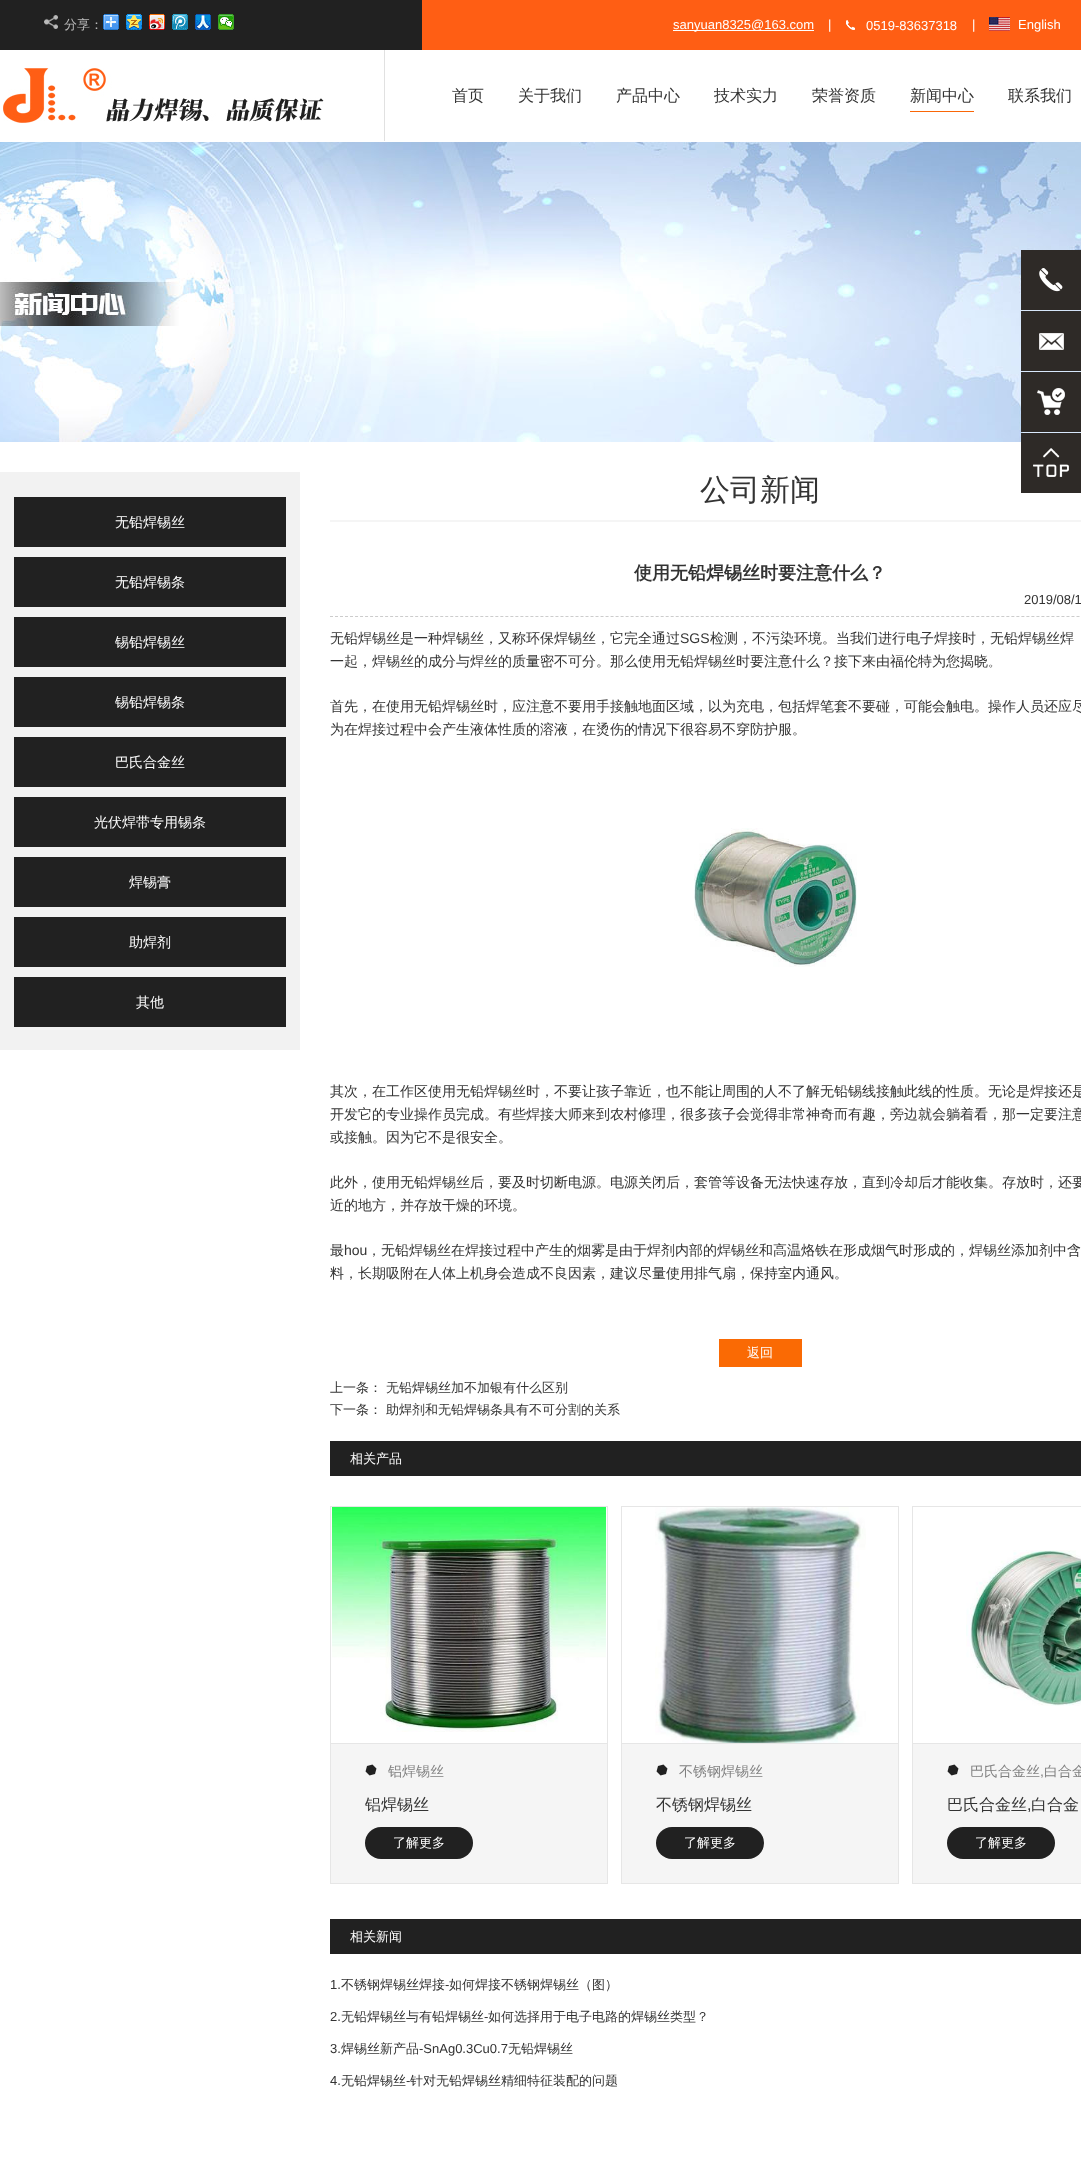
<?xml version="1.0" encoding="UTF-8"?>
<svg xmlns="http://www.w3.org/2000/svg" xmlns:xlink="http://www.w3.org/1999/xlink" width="1081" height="2168">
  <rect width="100%" height="100%" fill="#ffffff" />
  <rect width="422" height="50" fill="#212121" />
  <image x="44" y="15" width="14" height="14" xlink:href="image1.png" />
  <image x="103" y="14" width="16" height="16" xlink:href="image2.png" />
  <image x="126" y="14" width="16" height="16" xlink:href="image3.png" />
  <image x="149" y="14" width="16" height="16" xlink:href="image4.png" />
  <image x="172" y="14" width="16" height="16" xlink:href="image5.png" />
  <image x="195" y="14" width="16" height="16" xlink:href="image6.png" />
  <image x="218" y="14" width="16" height="16" xlink:href="image7.png" />
  <rect x="422" width="659" height="50" fill="#ff5e14" />
  <rect x="673" y="30" width="141" height="1" fill="#ffffff" />
  <image x="846" y="20" width="9" height="10" xlink:href="image8.png" />
  <image x="989" y="17" width="21" height="14" xlink:href="image9.png" />
  <rect x="384" y="50" width="1" height="91" fill="#e1e1e1" />
  <image x="3" y="68" width="321" height="55" xlink:href="image10.png" />
  <rect x="910" y="111" width="64" height="1" fill="#fa6607" />
  <image x="0" y="142" width="1081" height="300" xlink:href="image11.png" />
  <rect x="1021" y="250" width="60" height="60" fill="#2e2a27" />
  <image x="1039" y="268" width="24" height="24" xlink:href="image12.png" />
  <rect x="1021" y="311" width="60" height="60" fill="#2e2a27" />
  <image x="1039" y="333" width="25" height="17" xlink:href="image13.png" />
  <rect x="1021" y="372" width="60" height="60" fill="#2e2a27" />
  <image x="1037" y="388" width="28" height="27" xlink:href="image14.png" />
  <rect x="1021" y="433" width="60" height="60" fill="#2e2a27" />
  <image x="1033" y="448" width="36" height="29" xlink:href="image15.png" />
  <rect y="472" width="300" height="578" fill="#f2f2f2" />
  <rect x="14" y="497" width="272" height="50" fill="#212121" />
  <rect x="14" y="557" width="272" height="50" fill="#212121" />
  <rect x="14" y="617" width="272" height="50" fill="#212121" />
  <rect x="14" y="677" width="272" height="50" fill="#212121" />
  <rect x="14" y="737" width="272" height="50" fill="#212121" />
  <rect x="14" y="797" width="272" height="50" fill="#212121" />
  <rect x="14" y="857" width="272" height="50" fill="#212121" />
  <rect x="14" y="917" width="272" height="50" fill="#212121" />
  <rect x="14" y="977" width="272" height="50" fill="#212121" />
  <rect x="330" y="520" width="751" height="2" fill="#f5f5f5" />
  <path d="M 330 616.5 h 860" fill="none" stroke="#cccccc" stroke-dasharray="3 2.01" />
  <image x="694" y="828" width="163" height="139" xlink:href="image16.png" />
  <rect x="719" y="1339" width="83" height="28" fill="#fa6a04" />
  <rect x="330" y="1441" width="751" height="35" fill="#212121" />
  <rect x="330.5" y="1506.5" width="277" height="377" fill="none" stroke="#e6e6e6" />
  <image x="332" y="1507" width="274" height="225" xlink:href="image17.png" />
  <rect x="331" y="1744" width="276" height="139" fill="#f5f5f5" />
  <rect x="331" y="1743" width="276" height="1" fill="#e6e6e6" />
  <image x="365" y="1764" width="12" height="12" xlink:href="image18.png" />
  <rect x="365" y="1827" width="108" height="32" rx="16" fill="#212121" />
  <rect x="621.5" y="1506.5" width="277" height="377" fill="none" stroke="#e6e6e6" />
  <image x="655" y="1507" width="211" height="236" xlink:href="image19.png" />
  <rect x="622" y="1744" width="276" height="139" fill="#f5f5f5" />
  <rect x="622" y="1743" width="276" height="1" fill="#e6e6e6" />
  <image x="656" y="1764" width="12" height="12" xlink:href="image18.png" />
  <rect x="656" y="1827" width="108" height="32" rx="16" fill="#212121" />
  <rect x="912.5" y="1506.5" width="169" height="377" fill="none" stroke="#e6e6e6" />
  <image x="966" y="1550" width="115" height="156" xlink:href="image20.png" />
  <rect x="913" y="1744" width="168" height="139" fill="#f5f5f5" />
  <rect x="913" y="1743" width="168" height="1" fill="#e6e6e6" />
  <image x="947" y="1764" width="12" height="12" xlink:href="image18.png" />
  <rect x="947" y="1827" width="108" height="32" rx="16" fill="#212121" />
  <rect x="330" y="1919" width="751" height="35" fill="#212121" />
  <text x="64" y="29" style="font-family: WenQuanYi Zen Hei; font-size: 13px; font-weight: 500; fill: #bababa">分享：</text>
  <text x="673" y="29" style="font-family: Liberation Sans; font-size: 13px; fill: #ffffff">sanyuan8325@163.com</text>
  <text x="828" y="29" style="font-family: Liberation Sans; font-size: 13px; fill: #ffffff">|</text>
  <text x="866" y="30" style="font-family: Liberation Sans; font-size: 13px; fill: #ffffff">0519-83637318</text>
  <text x="972" y="29" style="font-family: Liberation Sans; font-size: 13px; fill: #ffffff">|</text>
  <text x="1018" y="29" style="font-family: Liberation Sans; font-size: 13px; fill: #ffffff">English</text>
  <text x="452" y="101" style="font-family: WenQuanYi Zen Hei; font-size: 16px; font-weight: 500; fill: #333333">首页</text>
  <text x="518" y="101" style="font-family: WenQuanYi Zen Hei; font-size: 16px; font-weight: 500; fill: #333333">关于我们</text>
  <text x="616" y="101" style="font-family: WenQuanYi Zen Hei; font-size: 16px; font-weight: 500; fill: #333333">产品中心</text>
  <text x="714" y="101" style="font-family: WenQuanYi Zen Hei; font-size: 16px; font-weight: 500; fill: #333333">技术实力</text>
  <text x="812" y="101" style="font-family: WenQuanYi Zen Hei; font-size: 16px; font-weight: 500; fill: #333333">荣誉资质</text>
  <text x="910" y="101" style="font-family: WenQuanYi Zen Hei; font-size: 16px; font-weight: 500; fill: #333333">新闻中心</text>
  <text x="1008" y="101" style="font-family: WenQuanYi Zen Hei; font-size: 16px; font-weight: 500; fill: #333333">联系我们</text>
  <text x="115" y="527" style="font-family: WenQuanYi Zen Hei; font-size: 14px; font-weight: 500; fill: #ffffff">无铅焊锡丝</text>
  <text x="115" y="587" style="font-family: WenQuanYi Zen Hei; font-size: 14px; font-weight: 500; fill: #ffffff">无铅焊锡条</text>
  <text x="115" y="647" style="font-family: WenQuanYi Zen Hei; font-size: 14px; font-weight: 500; fill: #ffffff">锡铅焊锡丝</text>
  <text x="115" y="707" style="font-family: WenQuanYi Zen Hei; font-size: 14px; font-weight: 500; fill: #ffffff">锡铅焊锡条</text>
  <text x="115" y="767" style="font-family: WenQuanYi Zen Hei; font-size: 14px; font-weight: 500; fill: #ffffff">巴氏合金丝</text>
  <text x="94" y="827" style="font-family: WenQuanYi Zen Hei; font-size: 14px; font-weight: 500; fill: #ffffff">光伏焊带专用锡条</text>
  <text x="129" y="887" style="font-family: WenQuanYi Zen Hei; font-size: 14px; font-weight: 500; fill: #ffffff">焊锡膏</text>
  <text x="129" y="947" style="font-family: WenQuanYi Zen Hei; font-size: 14px; font-weight: 500; fill: #ffffff">助焊剂</text>
  <text x="136" y="1007" style="font-family: WenQuanYi Zen Hei; font-size: 14px; font-weight: 500; fill: #ffffff">其他</text>
  <text x="700" y="500" style="font-family: WenQuanYi Zen Hei; font-size: 30px; font-weight: 500; fill: #333333">公司新闻</text>
  <text x="634" y="579" style="font-family: WenQuanYi Zen Hei; font-size: 18px; font-weight: bold; fill: #333333">使用无铅焊锡丝时要注意什么？</text>
  <text x="1024" y="604" style="font-family: Liberation Sans; font-size: 13px; fill: #333333">2019/08/1</text>
  <text x="330" y="643" style="font-family: WenQuanYi Zen Hei; font-size: 14px; font-weight: 500; fill: #333333">无铅焊锡丝是一种焊锡丝，又称环保焊锡丝，它完全通过</text>
  <text x="680" y="643" style="font-family: Liberation Sans; font-size: 14px; fill: #333333">SGS</text>
  <text x="710" y="643" style="font-family: WenQuanYi Zen Hei; font-size: 14px; font-weight: 500; fill: #333333">检测，不污染环境。当我们进行电子焊接时，无铅焊锡丝焊</text>
  <text x="330" y="666" style="font-family: WenQuanYi Zen Hei; font-size: 14px; font-weight: 500; fill: #333333">一起，焊锡丝的成分与焊丝的质量密不可分。那么使用无铅焊锡丝时要注意什么？接下来由福伦特为您揭晓</text>
  <text x="988" y="666" style="font-family: WenQuanYi Zen Hei; font-size: 13px; font-weight: 500; fill: #333333">。</text>
  <text x="330" y="711" style="font-family: WenQuanYi Zen Hei; font-size: 14px; font-weight: 500; fill: #333333">首先，在使用无铅焊锡丝时，应注意不要用手接触地面区域，以为充电，包括焊笔套不要碰，可能会触电。操作人员还应尽</text>
  <text x="330" y="734" style="font-family: WenQuanYi Zen Hei; font-size: 14px; font-weight: 500; fill: #333333">为在焊接过程中会产生液体性质的溶液，在烫伤的情况下很容易不穿防护服。</text>
  <text x="330" y="1096" style="font-family: WenQuanYi Zen Hei; font-size: 14px; font-weight: 500; fill: #333333">其次，在工作区使用无铅焊锡丝时，不要让孩子靠近，也不能让周围的人不了解无铅锡线接触此线的性质。无论是焊接还是</text>
  <text x="330" y="1119" style="font-family: WenQuanYi Zen Hei; font-size: 14px; font-weight: 500; fill: #333333">开发它的专业操作员完成。有些焊接大师来到农村修理，很多孩子会觉得非常神奇而有趣，旁边就会躺着看，那一定要注意</text>
  <text x="330" y="1142" style="font-family: WenQuanYi Zen Hei; font-size: 14px; font-weight: 500; fill: #333333">或接触。因为它不是很安全。</text>
  <text x="330" y="1187" style="font-family: WenQuanYi Zen Hei; font-size: 14px; font-weight: 500; fill: #333333">此外，使用无铅焊锡丝后，要及时切断电源。电源关闭后，套管等设备无法快速存放，直到冷却后才能收集。存放时，还要</text>
  <text x="330" y="1210" style="font-family: WenQuanYi Zen Hei; font-size: 14px; font-weight: 500; fill: #333333">近的地方，并存放干燥的环境。</text>
  <text x="330" y="1255" style="font-family: WenQuanYi Zen Hei; font-size: 14px; font-weight: 500; fill: #333333">最</text>
  <text x="344" y="1255" style="font-family: Liberation Sans; font-size: 14px; fill: #333333">hou</text>
  <text x="367" y="1255" style="font-family: WenQuanYi Zen Hei; font-size: 14px; font-weight: 500; fill: #333333">，无铅焊锡丝在焊接过程中产生的烟雾是由于焊剂内部的焊锡丝和高温烙铁在形成烟气时形成的，焊锡丝添加剂中含</text>
  <text x="330" y="1278" style="font-family: WenQuanYi Zen Hei; font-size: 14px; font-weight: 500; fill: #333333">料，长期吸附在人体上机身会造成不良因素，建议尽量使用排气扇，保持室内通风。</text>
  <text x="747" y="1357" style="font-family: WenQuanYi Zen Hei; font-size: 13px; font-weight: 500; fill: #ffffff">返回</text>
  <text x="330" y="1392" style="font-family: WenQuanYi Zen Hei; font-size: 13px; font-weight: 500; fill: #333333">上一条： 无铅焊锡丝加不加银有什么区别</text>
  <text x="330" y="1414" style="font-family: WenQuanYi Zen Hei; font-size: 13px; font-weight: 500; fill: #333333">下一条： 助焊剂和无铅焊锡条具有不可分割的关系</text>
  <text x="350" y="1463" style="font-family: WenQuanYi Zen Hei; font-size: 13px; font-weight: 500; fill: #ffffff">相关产品</text>
  <text x="388" y="1776" style="font-family: WenQuanYi Zen Hei; font-size: 14px; font-weight: 500; fill: #808080">铝焊锡丝</text>
  <text x="365" y="1810" style="font-family: WenQuanYi Zen Hei; font-size: 16px; font-weight: 500; fill: #333333">铝焊锡丝</text>
  <text x="393" y="1847" style="font-family: WenQuanYi Zen Hei; font-size: 13px; font-weight: 500; fill: #ffffff">了解更多</text>
  <text x="679" y="1776" style="font-family: WenQuanYi Zen Hei; font-size: 14px; font-weight: 500; fill: #808080">不锈钢焊锡丝</text>
  <text x="656" y="1810" style="font-family: WenQuanYi Zen Hei; font-size: 16px; font-weight: 500; fill: #333333">不锈钢焊锡丝</text>
  <text x="684" y="1847" style="font-family: WenQuanYi Zen Hei; font-size: 13px; font-weight: 500; fill: #ffffff">了解更多</text>
  <text x="970" y="1776" style="font-family: WenQuanYi Zen Hei; font-size: 14px; font-weight: 500; fill: #808080">巴氏合金丝</text>
  <text x="1040" y="1776" style="font-family: Liberation Sans; font-size: 14px; fill: #808080">,</text>
  <text x="1044" y="1776" style="font-family: WenQuanYi Zen Hei; font-size: 14px; font-weight: 500; fill: #808080">白合金</text>
  <text x="947" y="1810" style="font-family: WenQuanYi Zen Hei; font-size: 16px; font-weight: 500; fill: #333333">巴氏合金丝</text>
  <text x="1027" y="1810" style="font-family: Liberation Sans; font-size: 16px; fill: #333333">,</text>
  <text x="1031" y="1810" style="font-family: WenQuanYi Zen Hei; font-size: 16px; font-weight: 500; fill: #333333">白合金</text>
  <text x="975" y="1847" style="font-family: WenQuanYi Zen Hei; font-size: 13px; font-weight: 500; fill: #ffffff">了解更多</text>
  <text x="350" y="1941" style="font-family: WenQuanYi Zen Hei; font-size: 13px; font-weight: 500; fill: #ffffff">相关新闻</text>
  <text x="330" y="1989" style="font-family: Liberation Sans; font-size: 13px; fill: #333333">1.</text>
  <text x="341" y="1989" style="font-family: WenQuanYi Zen Hei; font-size: 13px; font-weight: 500; fill: #333333">不锈钢焊锡丝焊接</text>
  <text x="445" y="1989" style="font-family: Liberation Sans; font-size: 13px; fill: #333333">-</text>
  <text x="449" y="1989" style="font-family: WenQuanYi Zen Hei; font-size: 13px; font-weight: 500; fill: #333333">如何焊接不锈钢焊锡丝（图）</text>
  <text x="330" y="2021" style="font-family: Liberation Sans; font-size: 13px; fill: #333333">2.</text>
  <text x="341" y="2021" style="font-family: WenQuanYi Zen Hei; font-size: 13px; font-weight: 500; fill: #333333">无铅焊锡丝与有铅焊锡丝</text>
  <text x="484" y="2021" style="font-family: Liberation Sans; font-size: 13px; fill: #333333">-</text>
  <text x="488" y="2021" style="font-family: WenQuanYi Zen Hei; font-size: 13px; font-weight: 500; fill: #333333">如何选择用于电子电路的焊锡丝类型？</text>
  <text x="330" y="2053" style="font-family: Liberation Sans; font-size: 13px; fill: #333333">3.</text>
  <text x="341" y="2053" style="font-family: WenQuanYi Zen Hei; font-size: 13px; font-weight: 500; fill: #333333">焊锡丝新产品</text>
  <text x="419" y="2053" style="font-family: Liberation Sans; font-size: 13px; fill: #333333">-SnAg0.3Cu0.7</text>
  <text x="508" y="2053" style="font-family: WenQuanYi Zen Hei; font-size: 13px; font-weight: 500; fill: #333333">无铅焊锡丝</text>
  <text x="330" y="2085" style="font-family: Liberation Sans; font-size: 13px; fill: #333333">4.</text>
  <text x="341" y="2085" style="font-family: WenQuanYi Zen Hei; font-size: 13px; font-weight: 500; fill: #333333">无铅焊锡丝</text>
  <text x="406" y="2085" style="font-family: Liberation Sans; font-size: 13px; fill: #333333">-</text>
  <text x="410" y="2085" style="font-family: WenQuanYi Zen Hei; font-size: 13px; font-weight: 500; fill: #333333">针对无铅焊锡丝精细特征装配的问题</text>
</svg>
